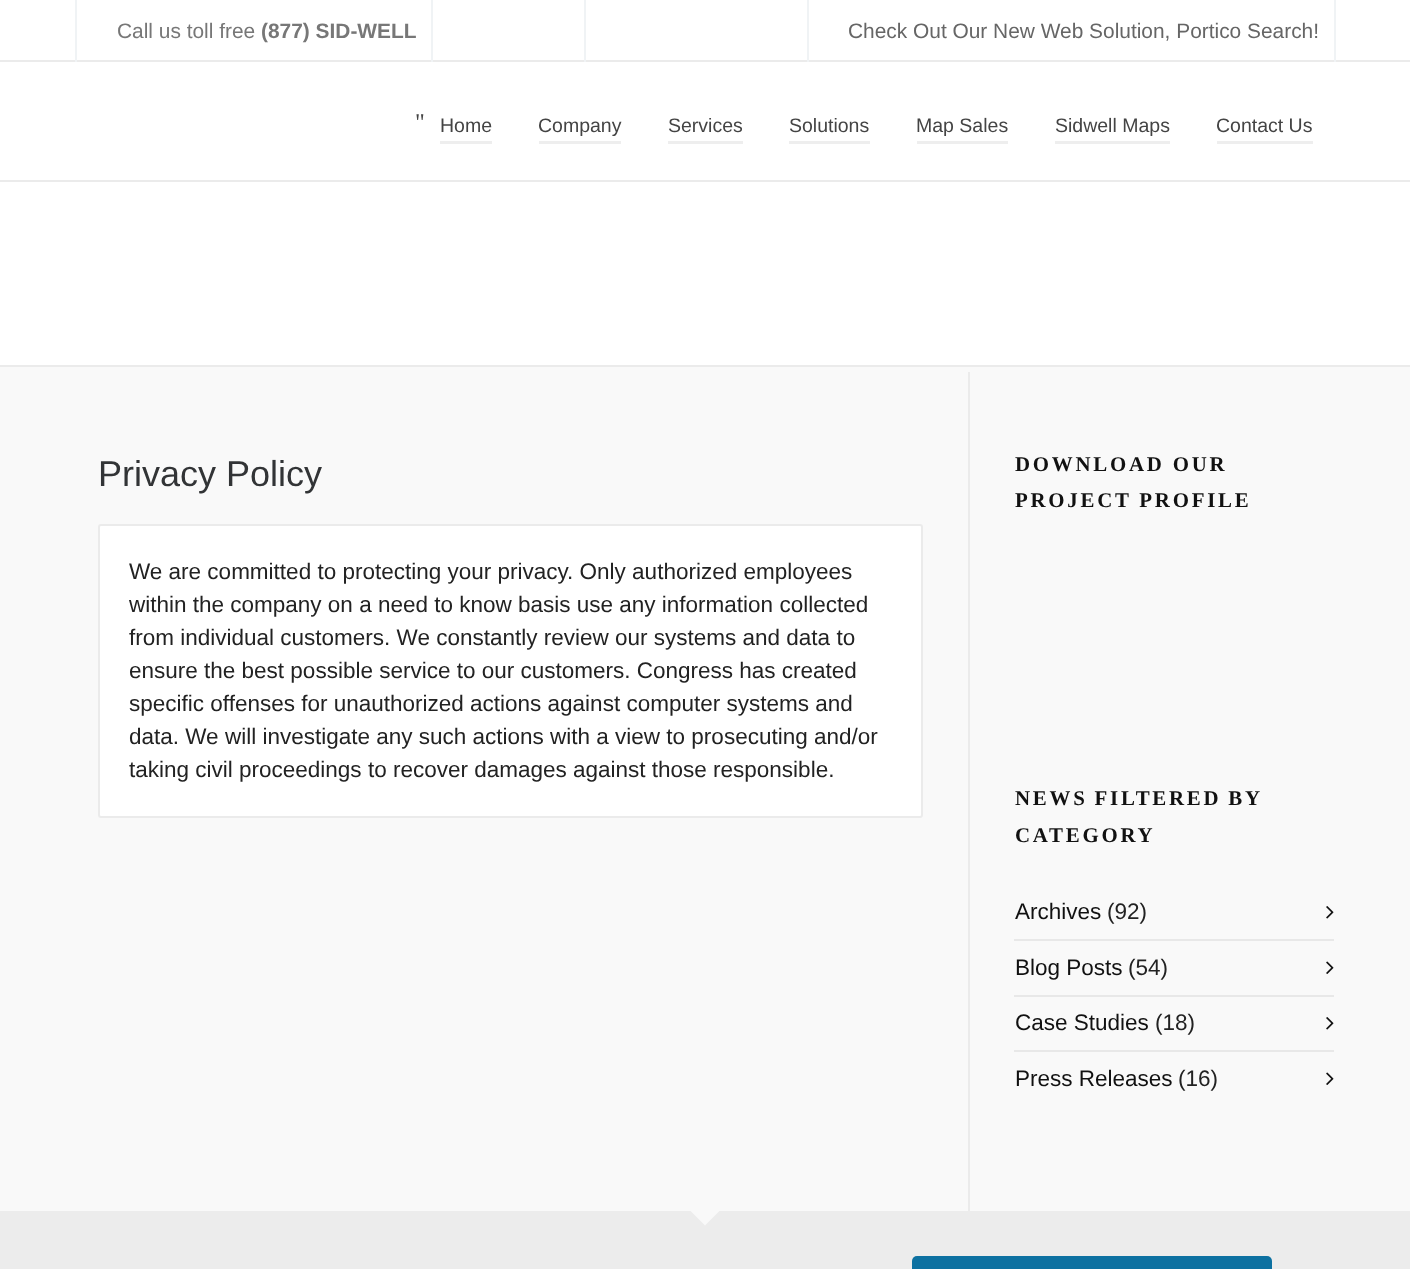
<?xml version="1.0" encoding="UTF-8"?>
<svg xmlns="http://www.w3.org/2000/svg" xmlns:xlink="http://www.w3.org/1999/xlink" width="1410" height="1269">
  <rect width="100%" height="100%" fill="#f9f9f9" />
  <rect width="1410" height="60" fill="#ffffff" />
  <rect y="60" width="1410" height="2" fill="#ebebeb" />
  <rect x="431" width="2" height="62" fill="#f0f3f5" />
  <rect x="75" width="2" height="62" fill="#f0f3f5" />
  <rect x="807" width="2" height="62" fill="#f0f3f5" />
  <rect x="584" width="2" height="62" fill="#f0f3f5" />
  <rect x="1334" width="2" height="62" fill="#f0f3f5" />
  <rect y="62" width="1410" height="118" fill="#ffffff" />
  <rect y="180" width="1410" height="2" fill="#ebebeb" />
  <rect x="440" y="141" width="52" height="3" fill="#eeeeee" />
  <rect x="539" y="141" width="82" height="3" fill="#eeeeee" />
  <rect x="668" y="141" width="75" height="3" fill="#eeeeee" />
  <rect x="789" y="141" width="81" height="3" fill="#eeeeee" />
  <rect x="917" y="141" width="91" height="3" fill="#eeeeee" />
  <rect x="1055" y="141" width="115" height="3" fill="#eeeeee" />
  <rect x="1217" y="141" width="96" height="3" fill="#eeeeee" />
  <rect y="182" width="1410" height="183" fill="#ffffff" />
  <rect y="365" width="1410" height="2" fill="#ebebeb" />
  <rect x="99" y="525" width="823" height="292" rx="2" fill="#ffffff" stroke="#ebebeb" stroke-width="2" />
  <rect x="968" y="372" width="2" height="839" fill="#ebebeb" />
  <image x="1326" y="906" width="8" height="13" xlink:href="image1.png" />
  <rect x="1014" y="939" width="320" height="2" fill="#e8e8e8" />
  <image x="1326" y="961" width="8" height="13" xlink:href="image2.png" />
  <rect x="1014" y="995" width="320" height="2" fill="#e8e8e8" />
  <image x="1326" y="1017" width="8" height="13" xlink:href="image1.png" />
  <rect x="1014" y="1050" width="320" height="2" fill="#e8e8e8" />
  <image x="1326" y="1072" width="8" height="13" xlink:href="image2.png" />
  <rect y="1211" width="1410" height="58" fill="#ececec" />
  <path d="M 688.5 1209 h 33 l -16.5 16.5 z" fill="#f9f9f9" />
  <rect x="912" y="1256" width="360" height="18" rx="5" fill="#0d71a1" />
  <text x="117" y="38" style="font-family: Liberation Sans; font-size: 20.9px; fill: #777777">Call us toll free</text>
  <text x="261" y="38" style="font-family: Liberation Sans; font-size: 20.9px; font-weight: bold; fill: #777777">(877) SID-WELL</text>
  <text x="848" y="38" style="font-family: Liberation Sans; font-size: 20.9px; fill: #666666">Check Out Our New Web Solution, Portico Search!</text>
  <text x="415" y="130" style="font-family: Liberation Serif; font-size: 24px; fill: #444444">"</text>
  <text x="440" y="132" style="font-family: Liberation Sans; font-size: 19.5px; fill: #444444">Home</text>
  <text x="538" y="132" style="font-family: Liberation Sans; font-size: 19.5px; fill: #444444">Company</text>
  <text x="668" y="132" style="font-family: Liberation Sans; font-size: 19.5px; fill: #444444">Services</text>
  <text x="789" y="132" style="font-family: Liberation Sans; font-size: 19.5px; fill: #444444">Solutions</text>
  <text x="916" y="132" style="font-family: Liberation Sans; font-size: 19.5px; fill: #444444">Map Sales</text>
  <text x="1055" y="132" style="font-family: Liberation Sans; font-size: 19.5px; fill: #444444">Sidwell Maps</text>
  <text x="1216" y="132" style="font-family: Liberation Sans; font-size: 19.5px; fill: #444444">Contact Us</text>
  <text x="98" y="486" style="font-family: Liberation Sans; font-size: 36px; fill: #323436">Privacy Policy</text>
  <text x="129" y="579" style="font-family: Liberation Sans; font-size: 22.5px; fill: #222222">We are committed to protecting your privacy. Only authorized employees</text>
  <text x="129" y="612" style="font-family: Liberation Sans; font-size: 22.5px; fill: #222222">within the company on a need to know basis use any information collected</text>
  <text x="129" y="645" style="font-family: Liberation Sans; font-size: 22.5px; fill: #222222">from individual customers. We constantly review our systems and data to</text>
  <text x="129" y="678" style="font-family: Liberation Sans; font-size: 22.5px; fill: #222222">ensure the best possible service to our customers. Congress has created</text>
  <text x="129" y="711" style="font-family: Liberation Sans; font-size: 22.5px; fill: #222222">specific offenses for unauthorized actions against computer systems and</text>
  <text x="129" y="744" style="font-family: Liberation Sans; font-size: 22.5px; fill: #222222">data. We will investigate any such actions with a view to prosecuting and/or</text>
  <text x="129" y="777" style="font-family: Liberation Sans; font-size: 22.5px; fill: #222222">taking civil proceedings to recover damages against those responsible.</text>
  <text x="1015" y="471" style="font-family: Liberation Serif; font-size: 20.9px; font-weight: bold; letter-spacing: 2.75px; fill: #111111">DOWNLOAD OUR</text>
  <text x="1015" y="507" style="font-family: Liberation Serif; font-size: 20.9px; font-weight: bold; letter-spacing: 2.75px; fill: #111111">PROJECT PROFILE</text>
  <text x="1015" y="805" word-spacing="-1" style="font-family: Liberation Serif; font-size: 20.9px; font-weight: bold; letter-spacing: 2.75px; fill: #111111">NEWS FILTERED BY</text>
  <text x="1015" y="842" style="font-family: Liberation Serif; font-size: 20.9px; font-weight: bold; letter-spacing: 2.75px; fill: #111111">CATEGORY</text>
  <text x="1015" y="919" style="font-family: Liberation Sans; font-size: 22.5px; fill: #111111">Archives</text>
  <text x="1107" y="919" style="font-family: Liberation Sans; font-size: 22.5px; fill: #222222">(92)</text>
  <text x="1015" y="975" style="font-family: Liberation Sans; font-size: 22.5px; fill: #111111">Blog Posts</text>
  <text x="1128" y="975" style="font-family: Liberation Sans; font-size: 22.5px; fill: #222222">(54)</text>
  <text x="1015" y="1030" style="font-family: Liberation Sans; font-size: 22.5px; fill: #111111">Case Studies</text>
  <text x="1155" y="1030" style="font-family: Liberation Sans; font-size: 22.5px; fill: #222222">(18)</text>
  <text x="1015" y="1086" style="font-family: Liberation Sans; font-size: 22.5px; fill: #111111">Press Releases</text>
  <text x="1178" y="1086" style="font-family: Liberation Sans; font-size: 22.5px; fill: #222222">(16)</text>
</svg>
